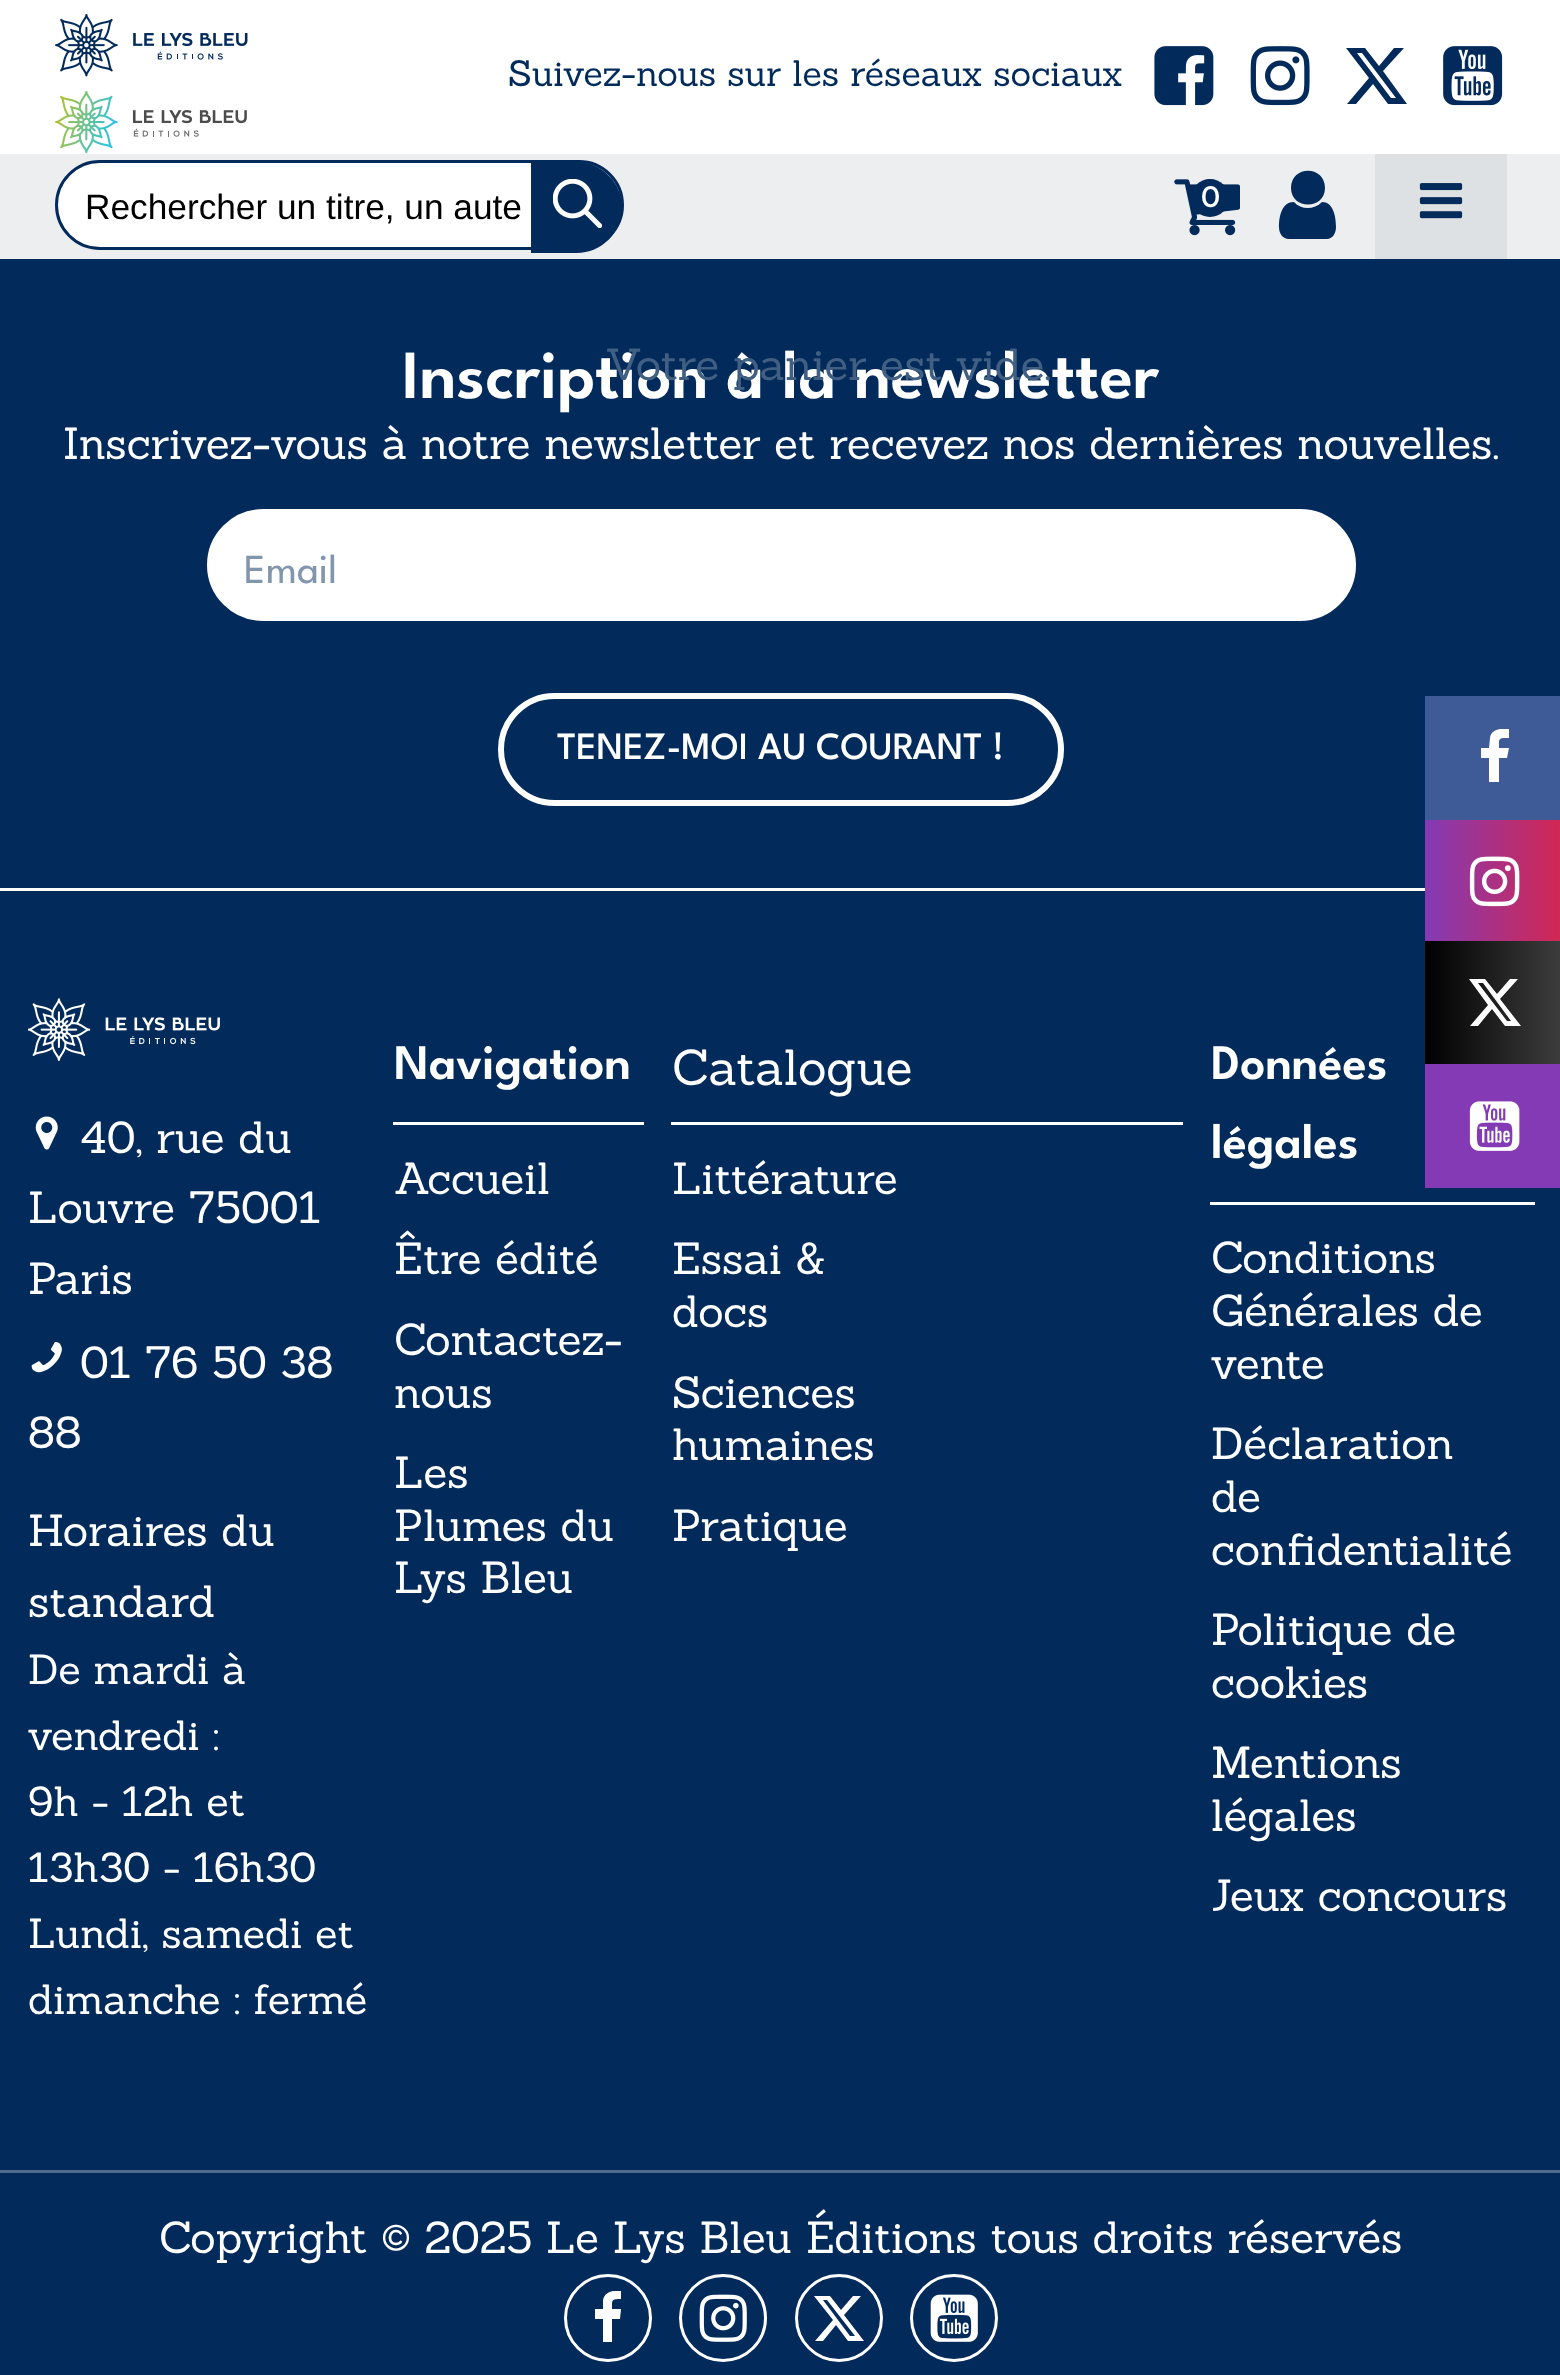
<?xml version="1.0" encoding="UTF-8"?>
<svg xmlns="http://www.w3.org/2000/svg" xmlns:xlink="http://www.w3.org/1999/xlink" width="1560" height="2375">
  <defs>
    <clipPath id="clip1"><rect x="1466" y="729" width="58" height="58" /></clipPath>
    <linearGradient id="g1" gradientUnits="userSpaceOnUse" x1="1425" y1="880" x2="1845" y2="880"><stop offset="0" stop-color="#833ab4" /><stop offset="0.5" stop-color="#fd1d1d" /><stop offset="1" stop-color="#fcb045" /></linearGradient>
    <linearGradient id="g2" gradientUnits="userSpaceOnUse" x1="1425" y1="1002" x2="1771" y2="1002"><stop offset="0" stop-color="#000000" /><stop offset="0.36" stop-color="#383838" /><stop offset="1" stop-color="#989898" /></linearGradient>
    <clipPath id="clip2"><rect x="580" y="2291" width="55" height="55" /></clipPath>
  </defs>
  <rect width="100%" height="100%" fill="#ffffff" />
  <image x="55" y="14" width="193" height="63" xlink:href="image1.png" />
  <image x="55" y="91" width="192" height="63" xlink:href="image2.png" />
  <image x="1154" y="46" width="60" height="60" xlink:href="image3.png" />
  <image x="1250" y="46" width="60" height="60" xlink:href="image4.png" />
  <path d="M 1394 48 h 10 l -21 23 l 24 33 h -19 l -15 -20 l -17 20 h -9 l 22 -26 l -23 -30 h 19 l 14 18 z m -3 50 h 5 l -34 -45 h -5 z" fill="#022a5b" />
  <image x="1443" y="46" width="60" height="60" xlink:href="image5.png" />
  <rect y="154" width="1560" height="105" fill="#eceeef" />
  <rect x="56.5" y="161.5" width="566" height="87" rx="43.5" fill="#ffffff" stroke="#022a5b" stroke-width="3" />
  <path d="M 531 162 h 45.5 c 25 0 45.5 20.5 45.5 45.5 c 0 25 -20.5 45.5 -45.5 45.5 h -45.5 z" fill="#022a5b" />
  <image x="553" y="179" width="49" height="49" xlink:href="image6.png" />
  <image x="1174" y="179" width="66" height="57" xlink:href="image7.png" />
  <circle cx="1210" cy="198" r="19" fill="#022a5b" />
  <path d="M 1336 227 c 0 7 -4 12 -9 12 h -38 c -6 0 -10 -5 -10 -12 c 0 -11 3 -25 15 -25 c 7 8 20 8 28 0 c 11 0 14 14 14 25 z m -11 -39 c 0 22 -34 22 -34 0 c 0 -23 34 -23 34 0 z" fill="#022a5b" />
  <rect x="1375" y="154" width="132" height="105" fill="#dee1e3" />
  <image x="1419" y="183" width="44" height="36" xlink:href="image8.png" />
  <rect y="259" width="1560" height="629" fill="#022a5b" />
  <rect x="205.5" y="507.5" width="1152" height="115" rx="57.5" fill="#ffffff" stroke="#022a5b" stroke-width="3" />
  <rect x="501" y="696" width="560" height="107" rx="53.5" fill="none" stroke="#ffffff" stroke-width="6" />
  <rect x="1425" y="696" width="135" height="124" fill="#3e5b98" />
  <g clip-path="url(#clip1)">
    <path d="M 1509 729 v 9 c -11 0 -10 0 -10 10 h 10 l -2 10 h -8 v 24 h -10 v -24 h -8 v -10 h 8 l 1 -10 c 1 -9 11 -10 19 -9 z" fill="#ffffff" />
  </g>
  <rect y="891" width="1560" height="1279" fill="#022a5b" />
  <rect x="1425" y="820" width="135" height="121" fill="url(#g1)" />
  <image x="1469" y="856" width="51" height="51" xlink:href="image9.png" />
  <rect x="1425" y="941" width="135" height="123" fill="url(#g2)" />
  <path d="M 1510 979 h 8 l -18 20 l 21 27 h -16 l -13 -17 l -14 17 h -8 l 18 -21 l -19 -26 h 16 l 12 15 z m -3 42 h 4 l -28 -38 h -5 z" fill="#ffffff" />
  <rect x="1425" y="1064" width="135" height="124" fill="#833ab4" />
  <image x="1469" y="1101" width="51" height="50" xlink:href="image10.png" />
  <image x="28" y="998" width="192" height="63" xlink:href="image11.png" />
  <image x="35" y="1116" width="23" height="34" xlink:href="image12.png" />
  <image x="31" y="1342" width="31" height="31" xlink:href="image13.png" />
  <rect x="393" y="1122" width="251" height="3" fill="#ffffff" />
  <rect x="671" y="1122" width="512" height="3" fill="#ffffff" />
  <rect x="1210" y="1202" width="325" height="3" fill="#ffffff" />
  <rect y="2173" width="1560" height="202" fill="#022a5b" />
  <rect y="2170" width="1560" height="3" fill="#4e6a8c" />
  <circle cx="608" cy="2318" r="42.5" fill="none" stroke="#ffffff" stroke-width="3" />
  <g clip-path="url(#clip2)">
    <path d="M 621 2291 v 8 c -10 0 -9 1 -9 10 h 9 l -1 10 h -8 v 23 h -9 v -23 h -8 v -10 h 8 v -9 c 2 -9 11 -10 18 -9 z" fill="#ffffff" />
  </g>
  <circle cx="723" cy="2318" r="42.5" fill="none" stroke="#ffffff" stroke-width="3" />
  <image x="699" y="2294" width="48" height="48" xlink:href="image14.png" />
  <circle cx="839" cy="2318" r="42.5" fill="none" stroke="#ffffff" stroke-width="3" />
  <path d="M 853 2296 h 8 l -17 19 l 20 26 h -16 l -12 -16 l -13 16 h -8 l 18 -21 l -19 -24 h 16 l 11 14 z m -3 40 h 5 l -28 -36 h -4 z" fill="#ffffff" />
  <circle cx="954" cy="2318" r="42.5" fill="none" stroke="#ffffff" stroke-width="3" />
  <image x="930" y="2294" width="48" height="48" xlink:href="image15.png" />
  <text x="508" y="86" style="font-family: Sanchez; font-size: 35.75px; fill: #022a5b">Suivez-nous sur les réseaux sociaux</text>
  <text x="85" y="219" style="font-family: Liberation Sans; font-size: 35.25px; fill: #000000">Rechercher un titre, un aute</text>
  <text x="1201" y="207" style="font-family: Sanchez; font-size: 28px; font-weight: bold; fill: #ffffff">0</text>
  <text x="402" y="398" style="font-family: League Spartan; font-size: 68.75px; font-weight: 600; fill: #ffffff">Inscription à la newsletter</text>
  <text x="605" y="380" style="font-family: Sanchez; font-size: 44px; fill: #405f83">Votre panier est vide.</text>
  <text x="63" y="459" style="font-family: Sanchez; font-size: 44px; fill: #ffffff">Inscrivez-vous à notre newsletter et recevez nos dernières nouvelles.</text>
  <text x="244" y="583" style="font-family: League Spartan; font-size: 41.25px; fill: #8195ad">Email</text>
  <text x="557" y="759" style="font-family: League Spartan; font-size: 38.5px; font-weight: 500; fill: #ffffff">TENEZ-MOI AU COURANT !</text>
  <text x="80" y="1153" style="font-family: Sanchez; font-size: 44px; fill: #ffffff">40, rue du</text>
  <text x="28" y="1223" style="font-family: Sanchez; font-size: 44px; fill: #ffffff">Louvre 75001</text>
  <text x="28" y="1294" style="font-family: Sanchez; font-size: 44px; fill: #ffffff">Paris</text>
  <text x="80" y="1378" style="font-family: Sanchez; font-size: 44px; fill: #ffffff">01 76 50 38</text>
  <text x="28" y="1448" style="font-family: Sanchez; font-size: 44px; fill: #ffffff">88</text>
  <text x="28" y="1546" style="font-family: Sanchez; font-size: 44px; fill: #ffffff">Horaires du</text>
  <text x="28" y="1617" style="font-family: Sanchez; font-size: 44px; fill: #ffffff">standard</text>
  <text x="28" y="1684" style="font-family: Sanchez; font-size: 41.25px; fill: #ffffff">De mardi à</text>
  <text x="28" y="1750" style="font-family: Sanchez; font-size: 41.25px; fill: #ffffff">vendredi :</text>
  <text x="28" y="1816" style="font-family: Sanchez; font-size: 41.25px; fill: #ffffff">9h - 12h et</text>
  <text x="28" y="1882" style="font-family: Sanchez; font-size: 41.25px; fill: #ffffff">13h30 - 16h30</text>
  <text x="28" y="1948" style="font-family: Sanchez; font-size: 41.25px; fill: #ffffff">Lundi, samedi et</text>
  <text x="28" y="2014" style="font-family: Sanchez; font-size: 41.25px; fill: #ffffff">dimanche : fermé</text>
  <text x="394" y="1079" style="font-family: League Spartan; font-size: 49.5px; font-weight: 600; fill: #ffffff">Navigation</text>
  <text x="394" y="1194" style="font-family: Sanchez; font-size: 44px; fill: #ffffff">Accueil</text>
  <text x="394" y="1274" style="font-family: Sanchez; font-size: 44px; fill: #ffffff">Être édité</text>
  <text x="394" y="1355" style="font-family: Sanchez; font-size: 44px; fill: #ffffff">Contactez-</text>
  <text x="394" y="1408" style="font-family: Sanchez; font-size: 44px; fill: #ffffff">nous</text>
  <text x="394" y="1488" style="font-family: Sanchez; font-size: 44px; fill: #ffffff">Les</text>
  <text x="394" y="1541" style="font-family: Sanchez; font-size: 44px; fill: #ffffff">Plumes du</text>
  <text x="394" y="1593" style="font-family: Sanchez; font-size: 44px; fill: #ffffff">Lys Bleu</text>
  <text x="672" y="1085" style="font-family: Sanchez; font-size: 49.5px; fill: #ffffff">Catalogue</text>
  <text x="672" y="1194" style="font-family: Sanchez; font-size: 44px; fill: #ffffff">Littérature</text>
  <text x="672" y="1274" style="font-family: Sanchez; font-size: 44px; fill: #ffffff">Essai &amp;</text>
  <text x="672" y="1327" style="font-family: Sanchez; font-size: 44px; fill: #ffffff">docs</text>
  <text x="672" y="1408" style="font-family: Sanchez; font-size: 44px; fill: #ffffff">Sciences</text>
  <text x="672" y="1460" style="font-family: Sanchez; font-size: 44px; fill: #ffffff">humaines</text>
  <text x="672" y="1541" style="font-family: Sanchez; font-size: 44px; fill: #ffffff">Pratique</text>
  <text x="1211" y="1079" style="font-family: League Spartan; font-size: 49.5px; font-weight: 600; fill: #ffffff">Données</text>
  <text x="1211" y="1158" style="font-family: League Spartan; font-size: 49.5px; font-weight: 600; fill: #ffffff">légales</text>
  <text x="1211" y="1273" style="font-family: Sanchez; font-size: 44px; fill: #ffffff">Conditions</text>
  <text x="1211" y="1326" style="font-family: Sanchez; font-size: 44px; fill: #ffffff">Générales de</text>
  <text x="1211" y="1379" style="font-family: Sanchez; font-size: 44px; fill: #ffffff">vente</text>
  <text x="1211" y="1459" style="font-family: Sanchez; font-size: 44px; fill: #ffffff">Déclaration</text>
  <text x="1211" y="1512" style="font-family: Sanchez; font-size: 44px; fill: #ffffff">de</text>
  <text x="1211" y="1565" style="font-family: Sanchez; font-size: 44px; fill: #ffffff">confidentialité</text>
  <text x="1211" y="1645" style="font-family: Sanchez; font-size: 44px; fill: #ffffff">Politique de</text>
  <text x="1211" y="1698" style="font-family: Sanchez; font-size: 44px; fill: #ffffff">cookies</text>
  <text x="1211" y="1778" style="font-family: Sanchez; font-size: 44px; fill: #ffffff">Mentions</text>
  <text x="1211" y="1831" style="font-family: Sanchez; font-size: 44px; fill: #ffffff">légales</text>
  <text x="1211" y="1911" style="font-family: Sanchez; font-size: 44px; fill: #ffffff">Jeux concours</text>
  <text x="159" y="2253" style="font-family: Sanchez; font-size: 44px; fill: #ffffff">Copyright © 2025 Le Lys Bleu Éditions tous droits réservés</text>
</svg>
